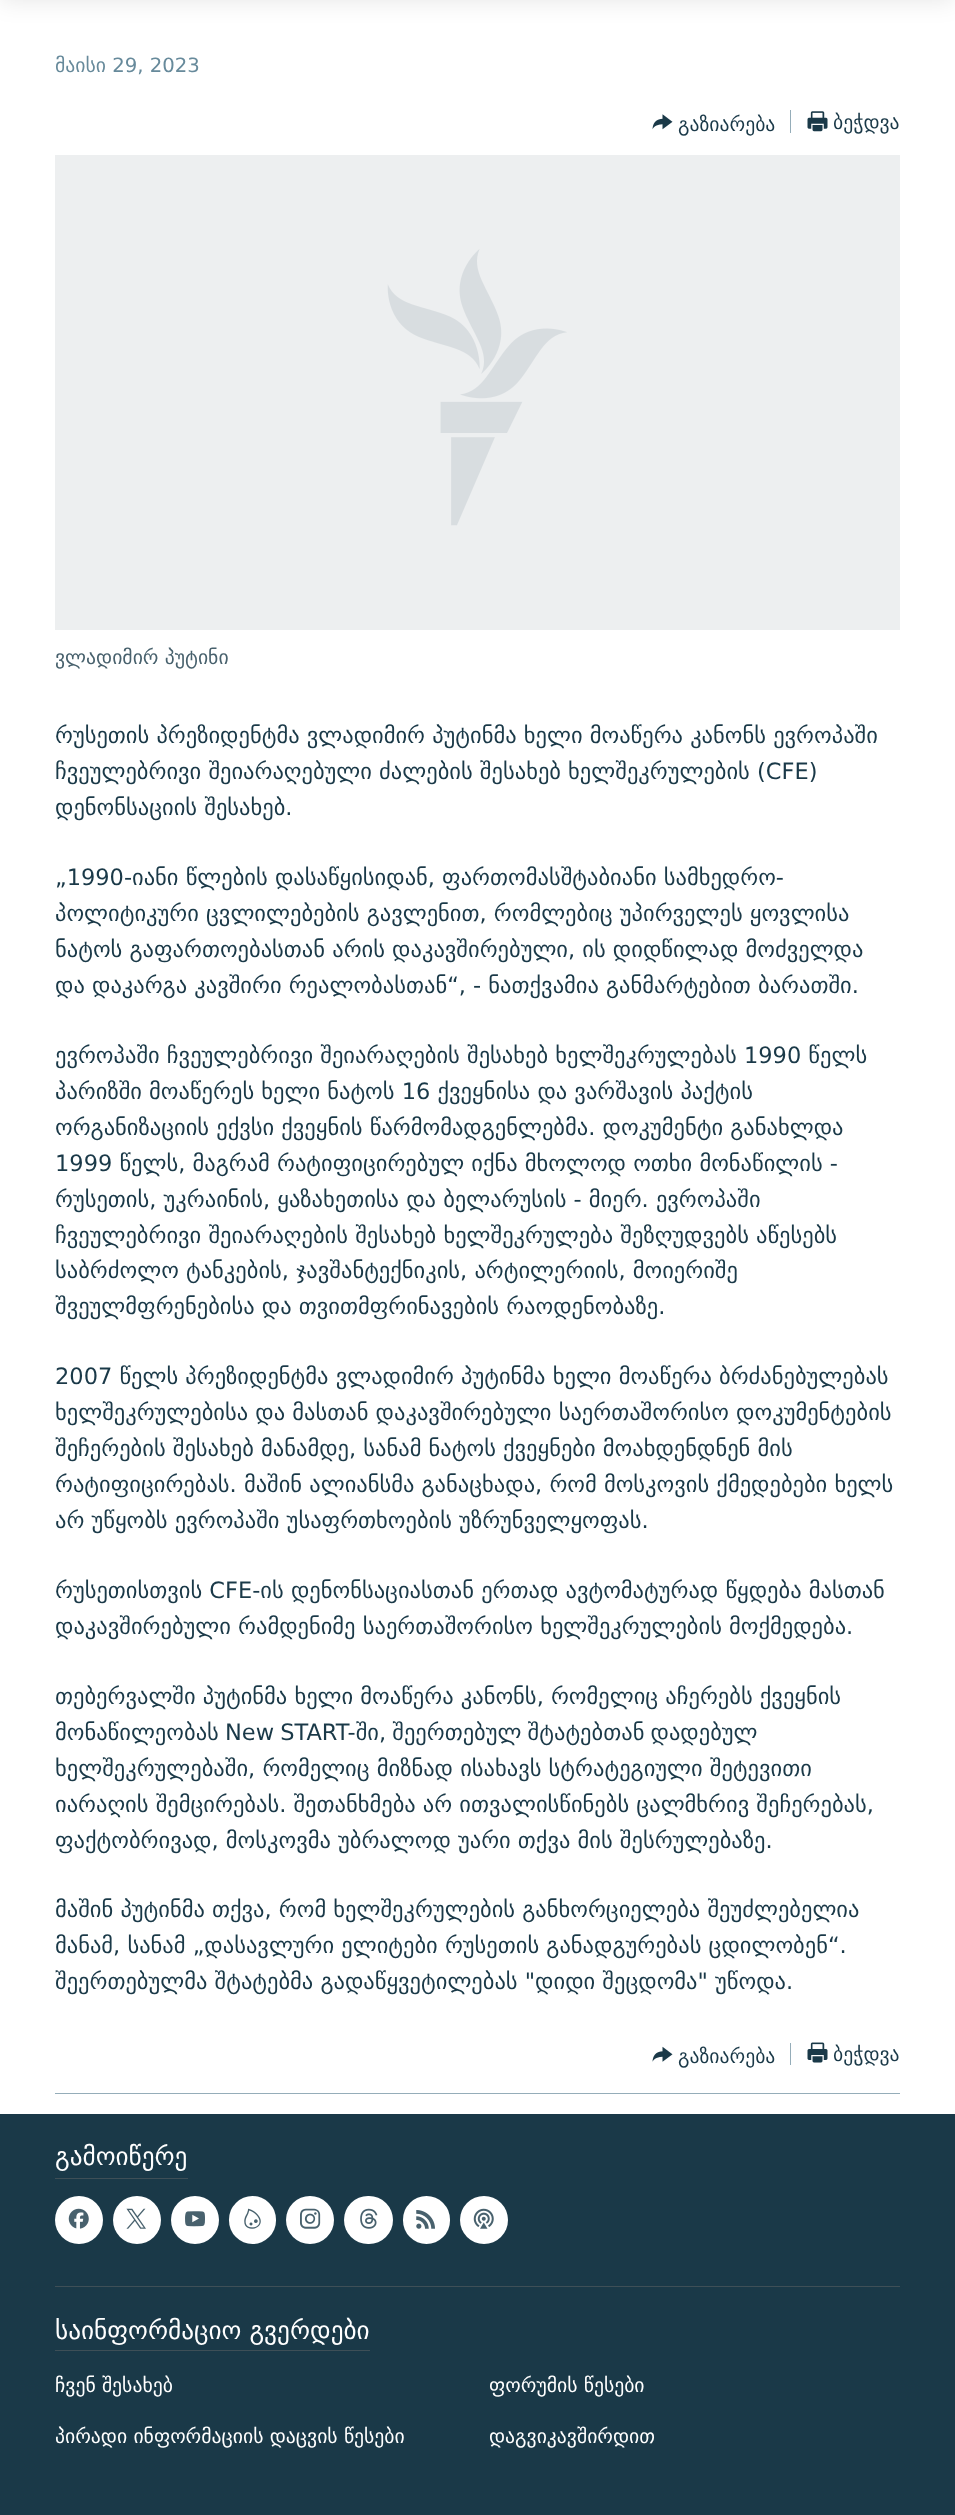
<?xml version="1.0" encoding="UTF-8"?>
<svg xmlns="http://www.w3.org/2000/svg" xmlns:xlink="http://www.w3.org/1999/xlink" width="955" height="2515">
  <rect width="100%" height="100%" fill="#ffffff" />
  <rect y="-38" width="955" height="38" fill="#000000" fill-opacity="0.1" filter="blur(12.5px)" />
  <image x="652" y="114" width="21" height="16" xlink:href="image1.png" />
  <rect x="790" y="110" width="1" height="23" fill="#95adb9" />
  <image x="807" y="111" width="21" height="21" xlink:href="image2.png" />
  <rect x="55" y="155" width="845" height="475" fill="#edeff0" />
  <image x="387" y="249" width="180" height="277" xlink:href="image3.png" />
  <rect x="55" y="2093" width="845" height="1" fill="#95adb9" />
  <image x="652" y="2046" width="21" height="16" xlink:href="image4.png" />
  <rect x="790" y="2043" width="1" height="22" fill="#95adb9" />
  <image x="807" y="2042" width="21" height="21" xlink:href="image5.png" />
  <rect y="2114" width="955" height="401" fill="#1a3948" />
  <rect x="55" y="2178" width="133" height="1" fill="#3e4f57" />
  <circle cx="79" cy="2220" r="24" fill="#ffffff" />
  <image x="68" y="2208" width="21" height="21" xlink:href="image6.png" />
  <circle cx="137" cy="2220" r="24" fill="#ffffff" />
  <image x="126" y="2208" width="20" height="21" xlink:href="image7.png" />
  <circle cx="195" cy="2220" r="24" fill="#ffffff" />
  <image x="185" y="2211" width="20" height="16" xlink:href="image8.png" />
  <rect x="229" y="2196" width="47" height="48" rx="23.5" fill="#ffffff" />
  <image x="244" y="2208" width="17" height="21" xlink:href="image9.png" />
  <circle cx="310" cy="2220" r="24" fill="#ffffff" />
  <image x="300" y="2208" width="21" height="21" xlink:href="image10.png" />
  <rect x="344" y="2196" width="49" height="48" rx="24" fill="#ffffff" />
  <image x="360" y="2208" width="18" height="21" xlink:href="image11.png" />
  <rect x="403" y="2196" width="47" height="48" rx="23.5" fill="#ffffff" />
  <image x="416" y="2210" width="19" height="19" xlink:href="image12.png" />
  <circle cx="484" cy="2220" r="24" fill="#ffffff" />
  <image x="473" y="2208" width="21" height="21" xlink:href="image13.png" />
  <rect x="55" y="2286" width="845" height="1" fill="#3e4f57" />
  <rect x="55" y="2350" width="315" height="1" fill="#3e4f57" />
  <text x="55" y="72" style="font-family: DejaVu Sans; font-size: 19.7px; fill: #678a9b">მაისი 29, 2023</text>
  <text x="678" y="131" style="font-family: DejaVu Sans; font-size: 19.7px; fill: #1a3948">გაზიარება</text>
  <text x="833" y="129" style="font-family: DejaVu Sans; font-size: 19.7px; fill: #1a3948">ბეჭდვა</text>
  <text x="55" y="664" style="font-family: DejaVu Sans; font-size: 19.7px; fill: #48616d">ვლადიმირ პუტინი</text>
  <text x="55" y="743" style="font-family: DejaVu Sans; font-size: 22.5px; fill: #1a3948">რუსეთის პრეზიდენტმა ვლადიმირ პუტინმა ხელი მოაწერა კანონს ევროპაში</text>
  <text x="55" y="779" style="font-family: DejaVu Sans; font-size: 22.5px; fill: #1a3948">ჩვეულებრივი შეიარაღებული ძალების შესახებ ხელშეკრულების (CFE)</text>
  <text x="55" y="815" style="font-family: DejaVu Sans; font-size: 22.5px; fill: #1a3948">დენონსაციის შესახებ.</text>
  <text x="55" y="885" style="font-family: DejaVu Sans; font-size: 22.5px; fill: #1a3948">„1990-იანი წლების დასაწყისიდან, ფართომასშტაბიანი სამხედრო-</text>
  <text x="55" y="921" style="font-family: DejaVu Sans; font-size: 22.5px; fill: #1a3948">პოლიტიკური ცვლილებების გავლენით, რომლებიც უპირველეს ყოვლისა</text>
  <text x="55" y="957" style="font-family: DejaVu Sans; font-size: 22.5px; fill: #1a3948">ნატოს გაფართოებასთან არის დაკავშირებული, ის დიდწილად მოძველდა</text>
  <text x="55" y="993" style="font-family: DejaVu Sans; font-size: 22.5px; fill: #1a3948">და დაკარგა კავშირი რეალობასთან“, - ნათქვამია განმარტებით ბარათში.</text>
  <text x="55" y="1063" style="font-family: DejaVu Sans; font-size: 22.5px; fill: #1a3948">ევროპაში ჩვეულებრივი შეიარაღების შესახებ ხელშეკრულებას 1990 წელს</text>
  <text x="55" y="1099" style="font-family: DejaVu Sans; font-size: 22.5px; fill: #1a3948">პარიზში მოაწერეს ხელი ნატოს 16 ქვეყნისა და ვარშავის პაქტის</text>
  <text x="55" y="1135" style="font-family: DejaVu Sans; font-size: 22.5px; fill: #1a3948">ორგანიზაციის ექვსი ქვეყნის წარმომადგენლებმა. დოკუმენტი განახლდა</text>
  <text x="55" y="1171" style="font-family: DejaVu Sans; font-size: 22.5px; fill: #1a3948">1999 წელს, მაგრამ რატიფიცირებულ იქნა მხოლოდ ოთხი მონაწილის -</text>
  <text x="55" y="1207" style="font-family: DejaVu Sans; font-size: 22.5px; fill: #1a3948">რუსეთის, უკრაინის, ყაზახეთისა და ბელარუსის - მიერ. ევროპაში</text>
  <text x="55" y="1243" style="font-family: DejaVu Sans; font-size: 22.5px; fill: #1a3948">ჩვეულებრივი შეიარაღების შესახებ ხელშეკრულება შეზღუდვებს აწესებს</text>
  <text x="55" y="1278" style="font-family: DejaVu Sans; font-size: 22.5px; fill: #1a3948">საბრძოლო ტანკების, ჯავშანტექნიკის, არტილერიის, მოიერიშე</text>
  <text x="55" y="1314" style="font-family: DejaVu Sans; font-size: 22.5px; fill: #1a3948">შვეულმფრენებისა და თვითმფრინავების რაოდენობაზე.</text>
  <text x="55" y="1384" style="font-family: DejaVu Sans; font-size: 22.5px; fill: #1a3948">2007 წელს პრეზიდენტმა ვლადიმირ პუტინმა ხელი მოაწერა ბრძანებულებას</text>
  <text x="55" y="1420" style="font-family: DejaVu Sans; font-size: 22.5px; fill: #1a3948">ხელშეკრულებისა და მასთან დაკავშირებული საერთაშორისო დოკუმენტების</text>
  <text x="55" y="1456" style="font-family: DejaVu Sans; font-size: 22.5px; fill: #1a3948">შეჩერების შესახებ მანამდე, სანამ ნატოს ქვეყნები მოახდენდნენ მის</text>
  <text x="55" y="1492" style="font-family: DejaVu Sans; font-size: 22.5px; fill: #1a3948">რატიფიცირებას. მაშინ ალიანსმა განაცხადა, რომ მოსკოვის ქმედებები ხელს</text>
  <text x="55" y="1528" style="font-family: DejaVu Sans; font-size: 22.5px; fill: #1a3948">არ უწყობს ევროპაში უსაფრთხოების უზრუნველყოფას.</text>
  <text x="55" y="1598" style="font-family: DejaVu Sans; font-size: 22.5px; fill: #1a3948">რუსეთისთვის CFE-ის დენონსაციასთან ერთად ავტომატურად წყდება მასთან</text>
  <text x="55" y="1634" style="font-family: DejaVu Sans; font-size: 22.5px; fill: #1a3948">დაკავშირებული რამდენიმე საერთაშორისო ხელშეკრულების მოქმედება.</text>
  <text x="55" y="1704" style="font-family: DejaVu Sans; font-size: 22.5px; fill: #1a3948">თებერვალში პუტინმა ხელი მოაწერა კანონს, რომელიც აჩერებს ქვეყნის</text>
  <text x="55" y="1740" word-spacing="-1" style="font-family: DejaVu Sans; font-size: 22.5px; fill: #1a3948">მონაწილეობას New START-ში, შეერთებულ შტატებთან დადებულ</text>
  <text x="55" y="1776" style="font-family: DejaVu Sans; font-size: 22.5px; fill: #1a3948">ხელშეკრულებაში, რომელიც მიზნად ისახავს სტრატეგიული შეტევითი</text>
  <text x="55" y="1812" style="font-family: DejaVu Sans; font-size: 22.5px; fill: #1a3948">იარაღის შემცირებას. შეთანხმება არ ითვალისწინებს ცალმხრივ შეჩერებას,</text>
  <text x="55" y="1848" style="font-family: DejaVu Sans; font-size: 22.5px; fill: #1a3948">ფაქტობრივად, მოსკოვმა უბრალოდ უარი თქვა მის შესრულებაზე.</text>
  <text x="55" y="1917" style="font-family: DejaVu Sans; font-size: 22.5px; fill: #1a3948">მაშინ პუტინმა თქვა, რომ ხელშეკრულების განხორციელება შეუძლებელია</text>
  <text x="55" y="1953" style="font-family: DejaVu Sans; font-size: 22.5px; fill: #1a3948">მანამ, სანამ „დასავლური ელიტები რუსეთის განადგურებას ცდილობენ“.</text>
  <text x="55" y="1989" style="font-family: DejaVu Sans; font-size: 22.5px; fill: #1a3948">შეერთებულმა შტატებმა გადაწყვეტილებას "დიდი შეცდომა" უწოდა.</text>
  <text x="678" y="2063" style="font-family: DejaVu Sans; font-size: 19.7px; fill: #1a3948">გაზიარება</text>
  <text x="833" y="2061" style="font-family: DejaVu Sans; font-size: 19.7px; fill: #1a3948">ბეჭდვა</text>
  <text x="55" y="2165" style="font-family: DejaVu Sans; font-size: 25.25px; fill: #ffffff">გამოიწერე</text>
  <text x="55" y="2339" style="font-family: DejaVu Sans; font-size: 25.25px; fill: #ffffff">საინფორმაციო გვერდები</text>
  <text x="55" y="2392" style="font-family: DejaVu Sans; font-size: 19.7px; fill: #ffffff">ჩვენ შესახებ</text>
  <text x="489" y="2392" style="font-family: DejaVu Sans; font-size: 19.7px; fill: #ffffff">ფორუმის წესები</text>
  <text x="55" y="2443" style="font-family: DejaVu Sans; font-size: 19.7px; fill: #ffffff">პირადი ინფორმაციის დაცვის წესები</text>
  <text x="489" y="2443" style="font-family: DejaVu Sans; font-size: 19.7px; fill: #ffffff">დაგვიკავშირდით</text>
</svg>
